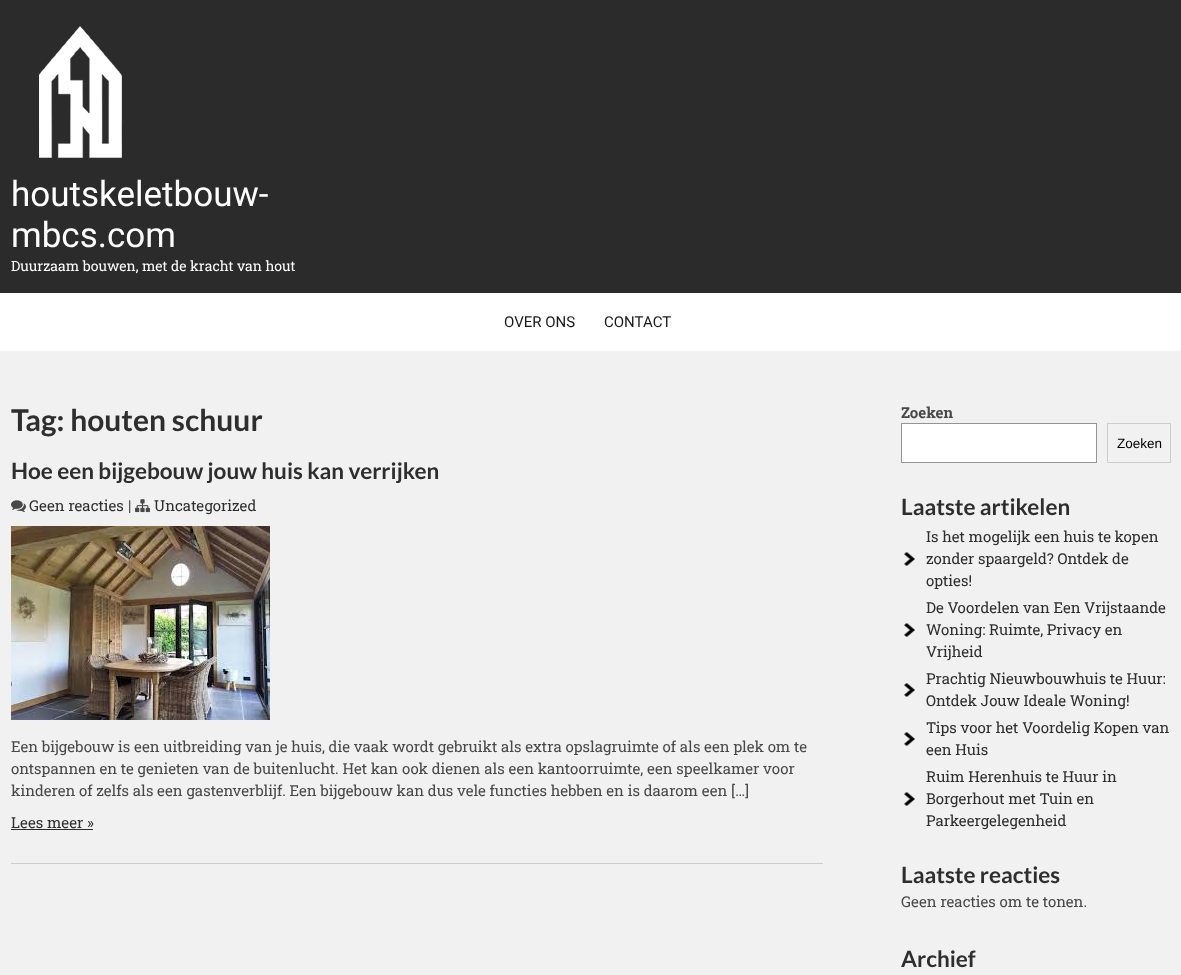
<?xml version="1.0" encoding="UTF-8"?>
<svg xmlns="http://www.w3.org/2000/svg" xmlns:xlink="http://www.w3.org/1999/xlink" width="1181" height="975">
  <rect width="100%" height="100%" fill="#f1f1f1" />
  <rect width="1181" height="293" fill="#2b2b2b" />
  <image x="39" y="26" width="83" height="132" xlink:href="image1.png" />
  <rect y="293" width="1181" height="58" fill="#ffffff" />
  <rect x="11" y="863" width="812" height="1" fill="#cccccc" />
  <image x="11" y="500" width="15" height="12" xlink:href="image2.png" />
  <image x="135" y="499" width="15" height="14" xlink:href="image3.png" />
  <image x="11" y="526" width="259" height="194" xlink:href="image4.png" />
  <rect x="11" y="829" width="82" height="1" fill="#2c2c2c" />
  <rect x="901.5" y="423.5" width="195" height="39" fill="#ffffff" stroke="#949494" />
  <rect x="1107.5" y="423.5" width="63" height="39" fill="none" stroke="#cccccc" />
  <image x="904" y="552" width="11" height="14" xlink:href="image5.png" />
  <image x="904" y="623" width="11" height="14" xlink:href="image5.png" />
  <image x="904" y="683" width="11" height="14" xlink:href="image5.png" />
  <image x="904" y="732" width="11" height="14" xlink:href="image5.png" />
  <image x="904" y="792" width="11" height="14" xlink:href="image5.png" />
  <text x="11" y="206" style="font-family: Roboto; font-size: 35px; fill: #ffffff">houtskeletbouw-</text>
  <text x="11" y="247" style="font-family: Roboto; font-size: 35px; fill: #ffffff">mbcs.com</text>
  <text x="11" y="271" style="font-family: Roboto Slab; font-size: 14px; fill: #ffffff">Duurzaam bouwen, met de kracht van hout</text>
  <text x="504" y="327" style="font-family: Roboto; font-size: 15px; fill: #191919">OVER ONS</text>
  <text x="604" y="327" style="font-family: Roboto; font-size: 15px; fill: #191919">CONTACT</text>
  <text x="11" y="431" style="font-family: Lato; font-size: 30px; font-weight: bold; fill: #2e2e2e">Tag: houten schuur</text>
  <text x="11" y="479" style="font-family: Lato; font-size: 22.5px; font-weight: bold; fill: #2e2e2e">Hoe een bijgebouw jouw huis kan verrijken</text>
  <text x="29" y="511" style="font-family: Roboto Slab; font-size: 15px; fill: #2e2e2e">Geen reacties</text>
  <text x="128" y="511" style="font-family: Roboto Slab; font-size: 15px; fill: #494848">|</text>
  <text x="154" y="511" style="font-family: Roboto Slab; font-size: 15px; fill: #2e2e2e">Uncategorized</text>
  <text x="11" y="752" style="font-family: Roboto Slab; font-size: 15px; fill: #494848">Een bijgebouw is een uitbreiding van je huis, die vaak wordt gebruikt als extra opslagruimte of als een plek om te</text>
  <text x="11" y="774" style="font-family: Roboto Slab; font-size: 15px; fill: #494848">ontspannen en te genieten van de buitenlucht. Het kan ook dienen als een kantoorruimte, een speelkamer voor</text>
  <text x="11" y="796" style="font-family: Roboto Slab; font-size: 15px; fill: #494848">kinderen of zelfs als een gastenverblijf. Een bijgebouw kan dus vele functies hebben en is daarom een […]</text>
  <text x="11" y="828" style="font-family: Roboto Slab; font-size: 15px; fill: #2e2e2e">Lees meer »</text>
  <text x="901" y="418" style="font-family: Roboto Slab; font-size: 15px; font-weight: bold; fill: #494848">Zoeken</text>
  <text x="1117" y="448" style="font-family: Liberation Sans; font-size: 13.5px; fill: #000000">Zoeken</text>
  <text x="901" y="515" style="font-family: Lato; font-size: 22.5px; font-weight: bold; fill: #2e2e2e">Laatste artikelen</text>
  <text x="926" y="542" style="font-family: Roboto Slab; font-size: 15px; fill: #2e2e2e">Is het mogelijk een huis te kopen</text>
  <text x="926" y="564" style="font-family: Roboto Slab; font-size: 15px; fill: #2e2e2e">zonder spaargeld? Ontdek de</text>
  <text x="926" y="586" style="font-family: Roboto Slab; font-size: 15px; fill: #2e2e2e">opties!</text>
  <text x="926" y="613" style="font-family: Roboto Slab; font-size: 15px; fill: #2e2e2e">De Voordelen van Een Vrijstaande</text>
  <text x="926" y="635" style="font-family: Roboto Slab; font-size: 15px; fill: #2e2e2e">Woning: Ruimte, Privacy en</text>
  <text x="926" y="657" style="font-family: Roboto Slab; font-size: 15px; fill: #2e2e2e">Vrijheid</text>
  <text x="926" y="684" style="font-family: Roboto Slab; font-size: 15px; fill: #2e2e2e">Prachtig Nieuwbouwhuis te Huur:</text>
  <text x="926" y="706" style="font-family: Roboto Slab; font-size: 15px; fill: #2e2e2e">Ontdek Jouw Ideale Woning!</text>
  <text x="926" y="733" style="font-family: Roboto Slab; font-size: 15px; fill: #2e2e2e">Tips voor het Voordelig Kopen van</text>
  <text x="926" y="755" style="font-family: Roboto Slab; font-size: 15px; fill: #2e2e2e">een Huis</text>
  <text x="926" y="782" style="font-family: Roboto Slab; font-size: 15px; fill: #2e2e2e">Ruim Herenhuis te Huur in</text>
  <text x="926" y="804" style="font-family: Roboto Slab; font-size: 15px; fill: #2e2e2e">Borgerhout met Tuin en</text>
  <text x="926" y="826" style="font-family: Roboto Slab; font-size: 15px; fill: #2e2e2e">Parkeergelegenheid</text>
  <text x="901" y="883" style="font-family: Lato; font-size: 22.5px; font-weight: bold; fill: #2e2e2e">Laatste reacties</text>
  <text x="901" y="907" style="font-family: Roboto Slab; font-size: 15px; fill: #494848">Geen reacties om te tonen.</text>
  <text x="901" y="967" style="font-family: Lato; font-size: 22.5px; font-weight: bold; fill: #2e2e2e">Archief</text>
</svg>
